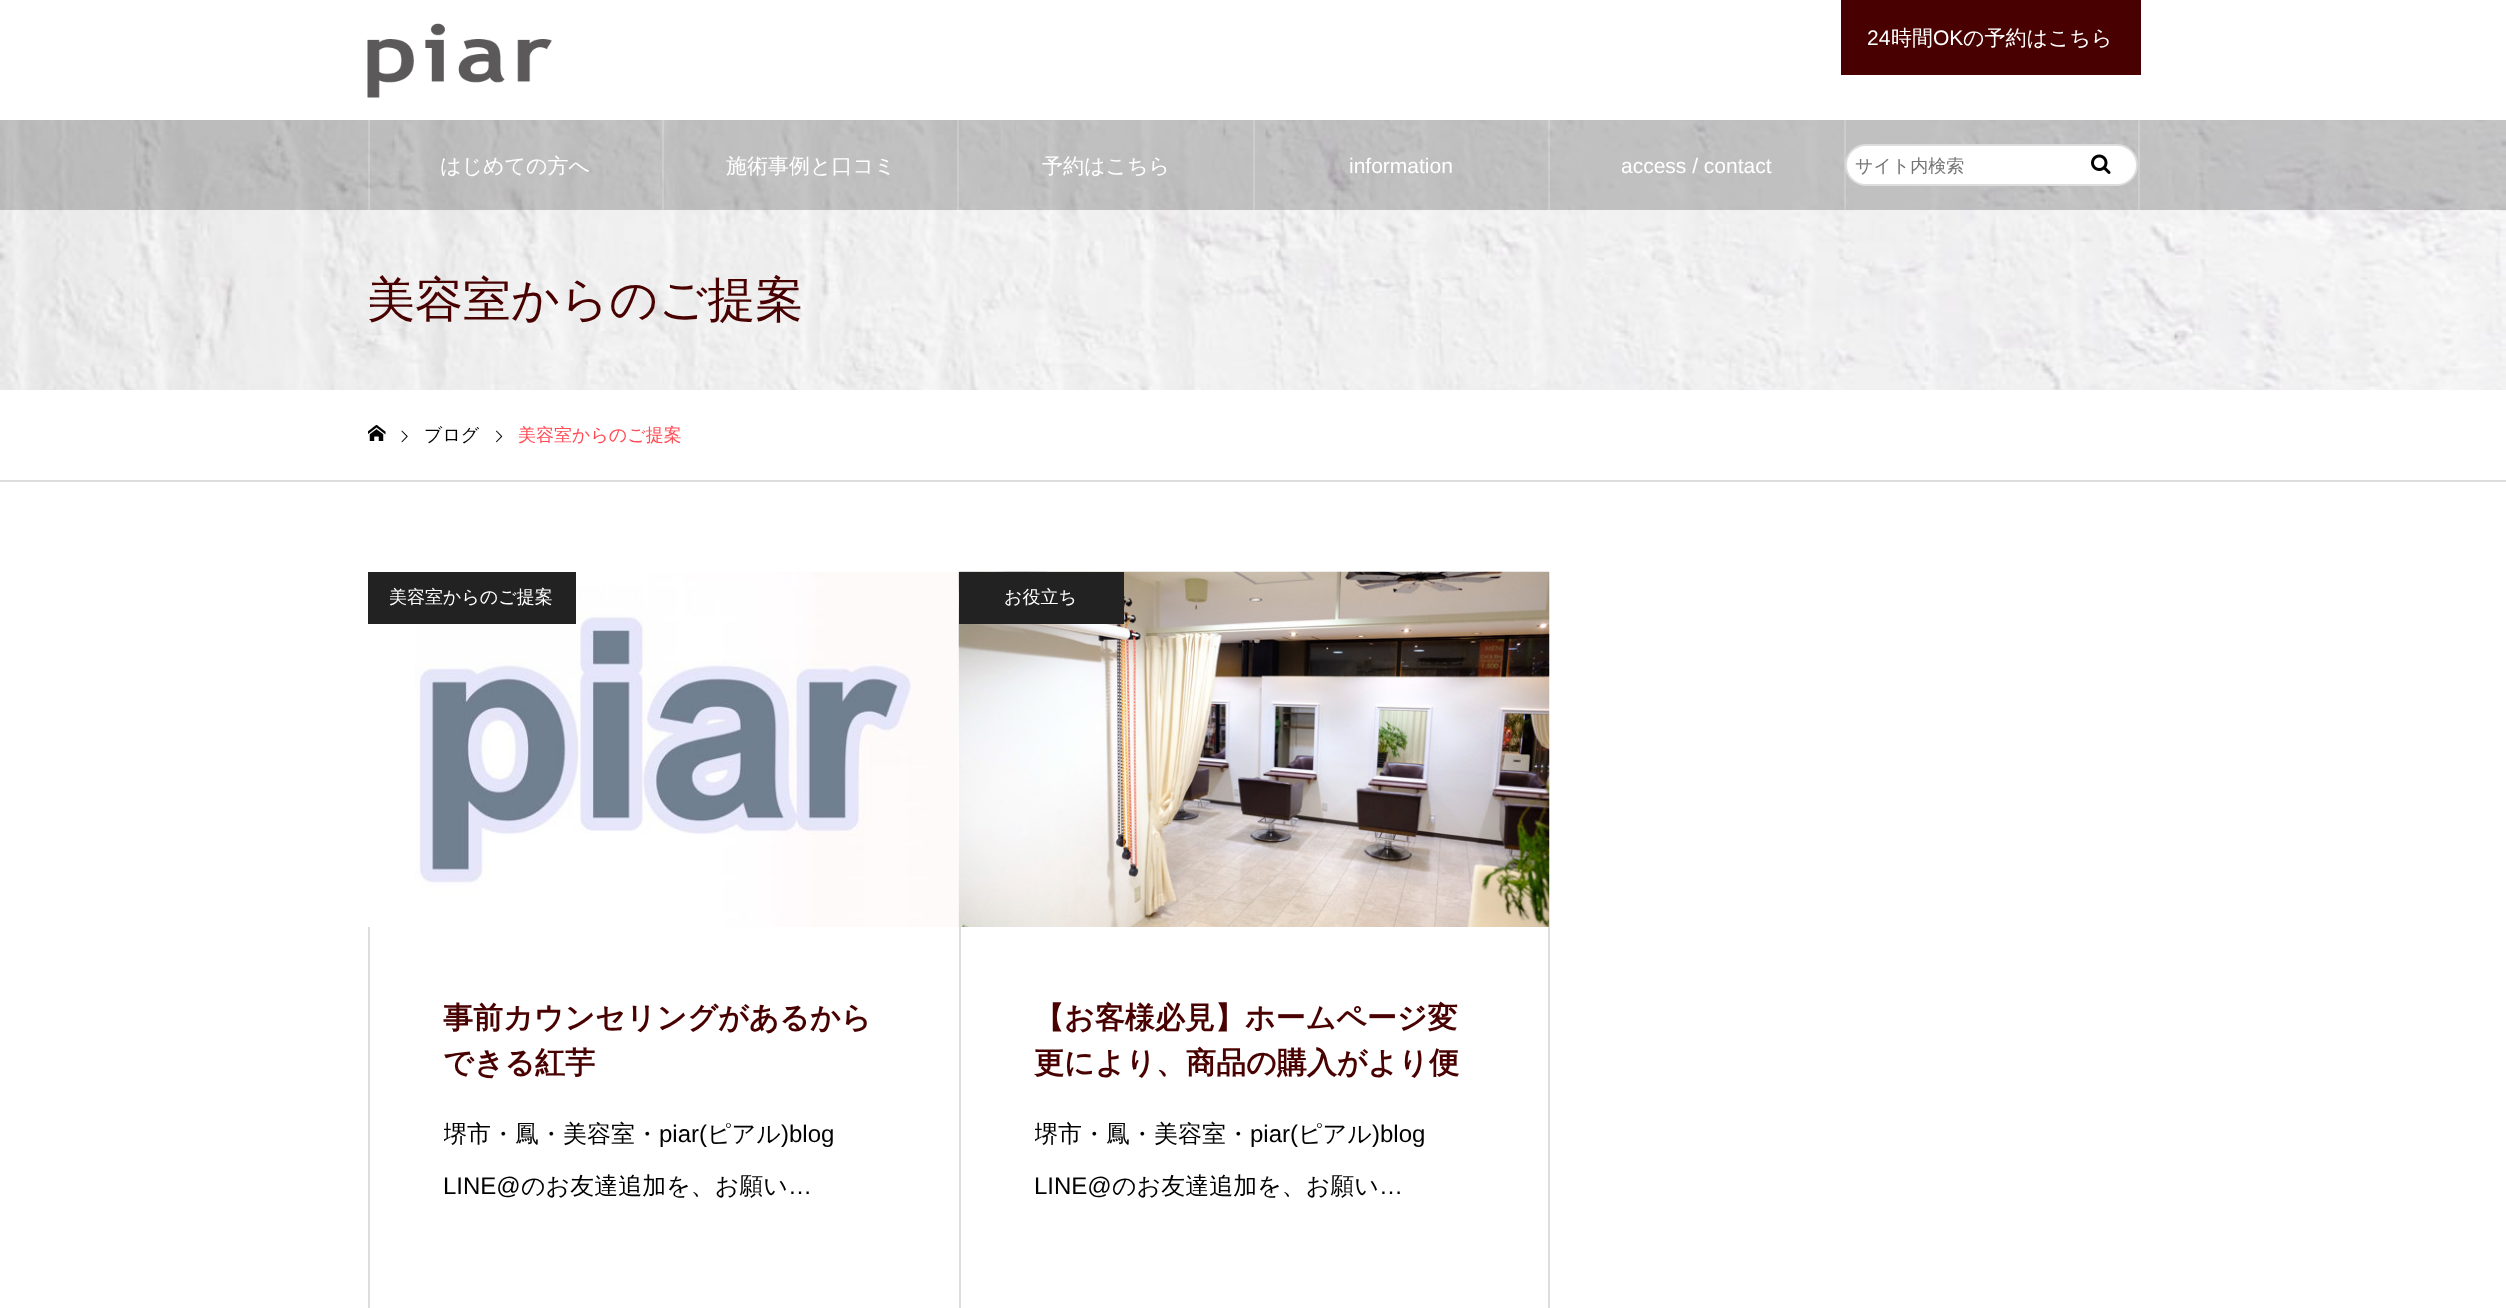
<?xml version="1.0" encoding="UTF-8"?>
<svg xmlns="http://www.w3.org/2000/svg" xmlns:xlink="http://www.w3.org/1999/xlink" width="2506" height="1308">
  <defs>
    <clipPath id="clip1"><rect x="444" y="1107" width="440" height="105" /></clipPath>
    <clipPath id="clip2"><rect x="1035" y="1107" width="438" height="105" /></clipPath>
  </defs>
  <rect width="100%" height="100%" fill="#ffffff" />
  <image x="367" y="23" width="185" height="75" xlink:href="image1.png" />
  <rect x="1841" width="300" height="75" fill="#490000" />
  <image x="0" y="120" width="2506" height="270" xlink:href="image3.png" />
  <rect y="120" width="2506" height="90" fill="#000000" fill-opacity="0.2" />
  <rect x="368" y="120" width="2" height="90" fill="#ffffff" fill-opacity="0.2" />
  <rect x="662" y="120" width="2" height="90" fill="#ffffff" fill-opacity="0.2" />
  <rect x="957" y="120" width="2" height="90" fill="#ffffff" fill-opacity="0.2" />
  <rect x="1253" y="120" width="2" height="90" fill="#ffffff" fill-opacity="0.2" />
  <rect x="1548" y="120" width="2" height="90" fill="#ffffff" fill-opacity="0.2" />
  <rect x="1844" y="120" width="2" height="90" fill="#ffffff" fill-opacity="0.2" />
  <rect x="2138" y="120" width="2" height="90" fill="#ffffff" fill-opacity="0.2" />
  <rect x="1846" y="145" width="291" height="40" rx="20" fill="#ffffff" stroke="#dddddd" stroke-width="2" />
  <image x="2091" y="154" width="20" height="20" xlink:href="image2.png" />
  <rect y="480" width="2506" height="2" fill="#dddddd" />
  <image x="368" y="425" width="18" height="16" xlink:href="image4.png" />
  <image x="401" y="430" width="7" height="13" xlink:href="image5.png" />
  <image x="496" y="430" width="7" height="13" xlink:href="image6.png" />
  <image x="415" y="572" width="543" height="355" xlink:href="image7.png" />
  <rect x="368" y="572" width="208" height="52" fill="#222222" />
  <rect x="368" y="927" width="2" height="381" fill="#dddddd" />
  <image x="958" y="571" width="592" height="356" xlink:href="image8.png" />
  <rect x="959" y="572" width="165" height="52" fill="#222222" />
  <rect x="1548" y="927" width="2" height="381" fill="#dddddd" />
  <rect x="959" y="927" width="2" height="381" fill="#dddddd" />
  <text x="1867" y="45" style="font-family: Liberation Sans; font-size: 21px; fill: #ffffff">24</text>
  <text x="1891" y="45" style="font-family: WenQuanYi Zen Hei; font-size: 21px; font-weight: 500; fill: #ffffff">時間</text>
  <text x="1933" y="45" style="font-family: Liberation Sans; font-size: 21px; fill: #ffffff">OK</text>
  <text x="1963" y="45" style="font-family: WenQuanYi Zen Hei; font-size: 21px; font-weight: 500; fill: #ffffff">の予約はこちら</text>
  <text x="440" y="173" style="font-family: WenQuanYi Zen Hei; font-size: 21px; font-weight: 500; fill: #ffffff">はじめての方へ</text>
  <text x="726" y="173" style="font-family: WenQuanYi Zen Hei; font-size: 21px; font-weight: 500; fill: #ffffff">施術事例と口コミ</text>
  <text x="1042" y="173" style="font-family: WenQuanYi Zen Hei; font-size: 21px; font-weight: 500; fill: #ffffff">予約はこちら</text>
  <text x="1349" y="173" style="font-family: Liberation Sans; font-size: 21px; fill: #ffffff">information</text>
  <text x="1621" y="173" style="font-family: Liberation Sans; font-size: 21px; fill: #ffffff">access / contact</text>
  <text x="1855" y="172" style="font-family: WenQuanYi Zen Hei; font-size: 18px; font-weight: 500; fill: #757575">サイト内検索</text>
  <text x="367" y="316" style="font-family: WenQuanYi Zen Hei; font-size: 48px; font-weight: 500; fill: #490000">美容室からのご提案</text>
  <text x="424" y="441" style="font-family: WenQuanYi Zen Hei; font-size: 18px; font-weight: 500; fill: #000000">ブログ</text>
  <text x="518" y="441" style="font-family: WenQuanYi Zen Hei; font-size: 18px; font-weight: 500; fill: #ff4b54">美容室からのご提案</text>
  <text x="389" y="603" style="font-family: WenQuanYi Zen Hei; font-size: 18px; font-weight: 500; fill: #ffffff">美容室からのご提案</text>
  <text x="443" y="1028" style="font-family: WenQuanYi Zen Hei; font-size: 30px; font-weight: bold; fill: #490000">事前カウンセリングがあるから</text>
  <text x="443" y="1073" style="font-family: WenQuanYi Zen Hei; font-size: 30px; font-weight: bold; fill: #490000">できる紅芋</text>
  <g clip-path="url(#clip1)">
    <text x="443" y="1142" style="font-family: WenQuanYi Zen Hei; font-size: 24px; font-weight: 500; fill: #000000">堺市・鳳・美容室・</text>
  </g>
  <text x="659" y="1142" style="font-family: Liberation Sans; font-size: 24px; fill: #000000">piar(</text>
  <text x="707" y="1142" style="font-family: WenQuanYi Zen Hei; font-size: 24px; font-weight: 500; fill: #000000">ピアル</text>
  <text x="781" y="1142" style="font-family: Liberation Sans; font-size: 24px; fill: #000000">)blog</text>
  <text x="443" y="1194" style="font-family: Liberation Sans; font-size: 24px; fill: #000000">LINE@</text>
  <text x="521" y="1194" style="font-family: WenQuanYi Zen Hei; font-size: 24px; font-weight: 500; fill: #000000">のお友達追加を、お願い</text>
  <text x="788" y="1194" style="font-family: Liberation Sans; font-size: 24px; fill: #000000">…</text>
  <text x="1004" y="603" style="font-family: WenQuanYi Zen Hei; font-size: 18px; font-weight: 500; fill: #ffffff">お役立ち</text>
  <text x="1034" y="1028" style="font-family: WenQuanYi Zen Hei; font-size: 30px; font-weight: bold; fill: #490000">【お客様必見】ホームページ変</text>
  <text x="1034" y="1073" style="font-family: WenQuanYi Zen Hei; font-size: 30px; font-weight: bold; fill: #490000">更により、商品の購入がより便</text>
  <g clip-path="url(#clip2)">
    <text x="1034" y="1142" style="font-family: WenQuanYi Zen Hei; font-size: 24px; font-weight: 500; fill: #000000">堺市・鳳・美容室・</text>
  </g>
  <text x="1250" y="1142" style="font-family: Liberation Sans; font-size: 24px; fill: #000000">piar(</text>
  <text x="1298" y="1142" style="font-family: WenQuanYi Zen Hei; font-size: 24px; font-weight: 500; fill: #000000">ピアル</text>
  <text x="1372" y="1142" style="font-family: Liberation Sans; font-size: 24px; fill: #000000">)blog</text>
  <text x="1034" y="1194" style="font-family: Liberation Sans; font-size: 24px; fill: #000000">LINE@</text>
  <text x="1112" y="1194" style="font-family: WenQuanYi Zen Hei; font-size: 24px; font-weight: 500; fill: #000000">のお友達追加を、お願い</text>
  <text x="1379" y="1194" style="font-family: Liberation Sans; font-size: 24px; fill: #000000">…</text>
</svg>
